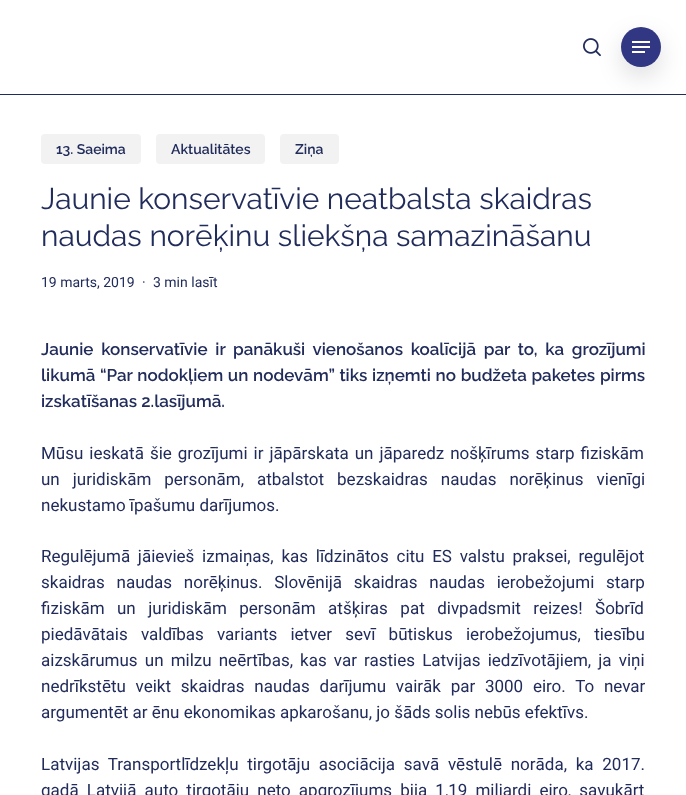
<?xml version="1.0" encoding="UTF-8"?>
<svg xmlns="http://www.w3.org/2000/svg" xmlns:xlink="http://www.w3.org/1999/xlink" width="686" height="795">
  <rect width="100%" height="100%" fill="#ffffff" />
  <rect y="94" width="686" height="1" fill="#212c5b" />
  <image x="583" y="38" width="18" height="19" xlink:href="image1.png" />
  <rect x="621" y="37" width="40" height="40" rx="20" fill="#000000" fill-opacity="0.13" filter="blur(12.5px)" />
  <circle cx="641" cy="47" r="20" fill="#313782" />
  <rect x="632" y="41" width="18" height="2" fill="#ffffff" />
  <rect x="632" y="51" width="13" height="2" fill="#ffffff" />
  <rect x="632" y="46" width="18" height="2" fill="#ffffff" />
  <rect x="41" y="134" width="100" height="30" rx="4" fill="#f2f2f2" />
  <rect x="156" y="134" width="109" height="30" rx="4" fill="#f2f2f2" />
  <rect x="280" y="134" width="59" height="30" rx="4" fill="#f2f2f2" />
  <text x="56" y="154" style="font-family: Raleway; font-size: 14px; font-weight: 600; fill: #212c5b">13. Saeima</text>
  <text x="171" y="154" style="font-family: Raleway; font-size: 14px; font-weight: 600; fill: #212c5b">Aktualitātes</text>
  <text x="295" y="154" style="font-family: Raleway; font-size: 14px; font-weight: 600; fill: #212c5b">Ziņa</text>
  <text x="41" y="209" style="font-family: Raleway; font-size: 29.9px; fill: #212c5b">Jaunie konservatīvie neatbalsta skaidras</text>
  <text x="41" y="246" style="font-family: Raleway; font-size: 29.9px; fill: #212c5b">naudas norēķinu sliekšņa samazināšanu</text>
  <text x="41" y="287" style="font-family: Roboto; font-size: 14px; fill: #212c5b">19 marts, 2019</text>
  <text x="142" y="287" style="font-family: Roboto; font-size: 14px; fill: #212c5b">·</text>
  <text x="153" y="287" style="font-family: Roboto; font-size: 14px; fill: #212c5b">3 min lasīt</text>
  <text x="41" y="355" word-spacing="3.5" style="font-family: Raleway; font-size: 17px; font-weight: 600; fill: #212c5b">Jaunie konservatīvie ir panākuši vienošanos koalīcijā par to, ka grozījumi</text>
  <text x="41" y="381" word-spacing="0.5" style="font-family: Raleway; font-size: 17px; font-weight: 600; fill: #212c5b">likumā “Par nodokļiem un nodevām” tiks izņemti no budžeta paketes pirms</text>
  <text x="41" y="407" style="font-family: Raleway; font-size: 17px; font-weight: 600; fill: #212c5b">izskatīšanas 2.lasījumā.</text>
  <text x="41" y="459" word-spacing="1.75" style="font-family: Roboto; font-size: 17px; fill: #212c5b">Mūsu ieskatā šie grozījumi ir jāpārskata un jāparedz nošķīrums starp fiziskām</text>
  <text x="41" y="485" word-spacing="8.75" style="font-family: Roboto; font-size: 17px; fill: #212c5b">un juridiskām personām, atbalstot bezskaidras naudas norēķinus vienīgi</text>
  <text x="41" y="511" style="font-family: Roboto; font-size: 17px; fill: #212c5b">nekustamo īpašumu darījumos.</text>
  <text x="41" y="562" word-spacing="3.5" style="font-family: Roboto; font-size: 17px; fill: #212c5b">Regulējumā jāievieš izmaiņas, kas līdzinātos citu ES valstu praksei, regulējot</text>
  <text x="41" y="588" word-spacing="7.5" style="font-family: Roboto; font-size: 17px; fill: #212c5b">skaidras naudas norēķinus. Slovēnijā skaidras naudas ierobežojumi starp</text>
  <text x="41" y="614" word-spacing="8.25" style="font-family: Roboto; font-size: 17px; fill: #212c5b">fiziskām un juridiskām personām atšķiras pat divpadsmit reizes! Šobrīd</text>
  <text x="41" y="640" word-spacing="9" style="font-family: Roboto; font-size: 17px; fill: #212c5b">piedāvātais valdības variants ietver sevī būtiskus ierobežojumus, tiesību</text>
  <text x="41" y="666" word-spacing="2.9" style="font-family: Roboto; font-size: 17px; fill: #212c5b">aizskārumus un milzu neērtības, kas var rasties Latvijas iedzīvotājiem, ja viņi</text>
  <text x="41" y="692" word-spacing="5.5" style="font-family: Roboto; font-size: 17px; fill: #212c5b">nedrīkstētu veikt skaidras naudas darījumu vairāk par 3000 eiro. To nevar</text>
  <text x="41" y="718" style="font-family: Roboto; font-size: 17px; fill: #212c5b">argumentēt ar ēnu ekonomikas apkarošanu, jo šāds solis nebūs efektīvs.</text>
  <text x="41" y="770" word-spacing="4.5" style="font-family: Roboto; font-size: 17px; fill: #212c5b">Latvijas Transportlīdzekļu tirgotāju asociācija savā vēstulē norāda, ka 2017.</text>
  <text x="41" y="796" word-spacing="3.9" style="font-family: Roboto; font-size: 17px; fill: #212c5b">gadā Latvijā auto tirgotāju neto apgrozījums bija 1,19 miljardi eiro, savukārt</text>
</svg>
